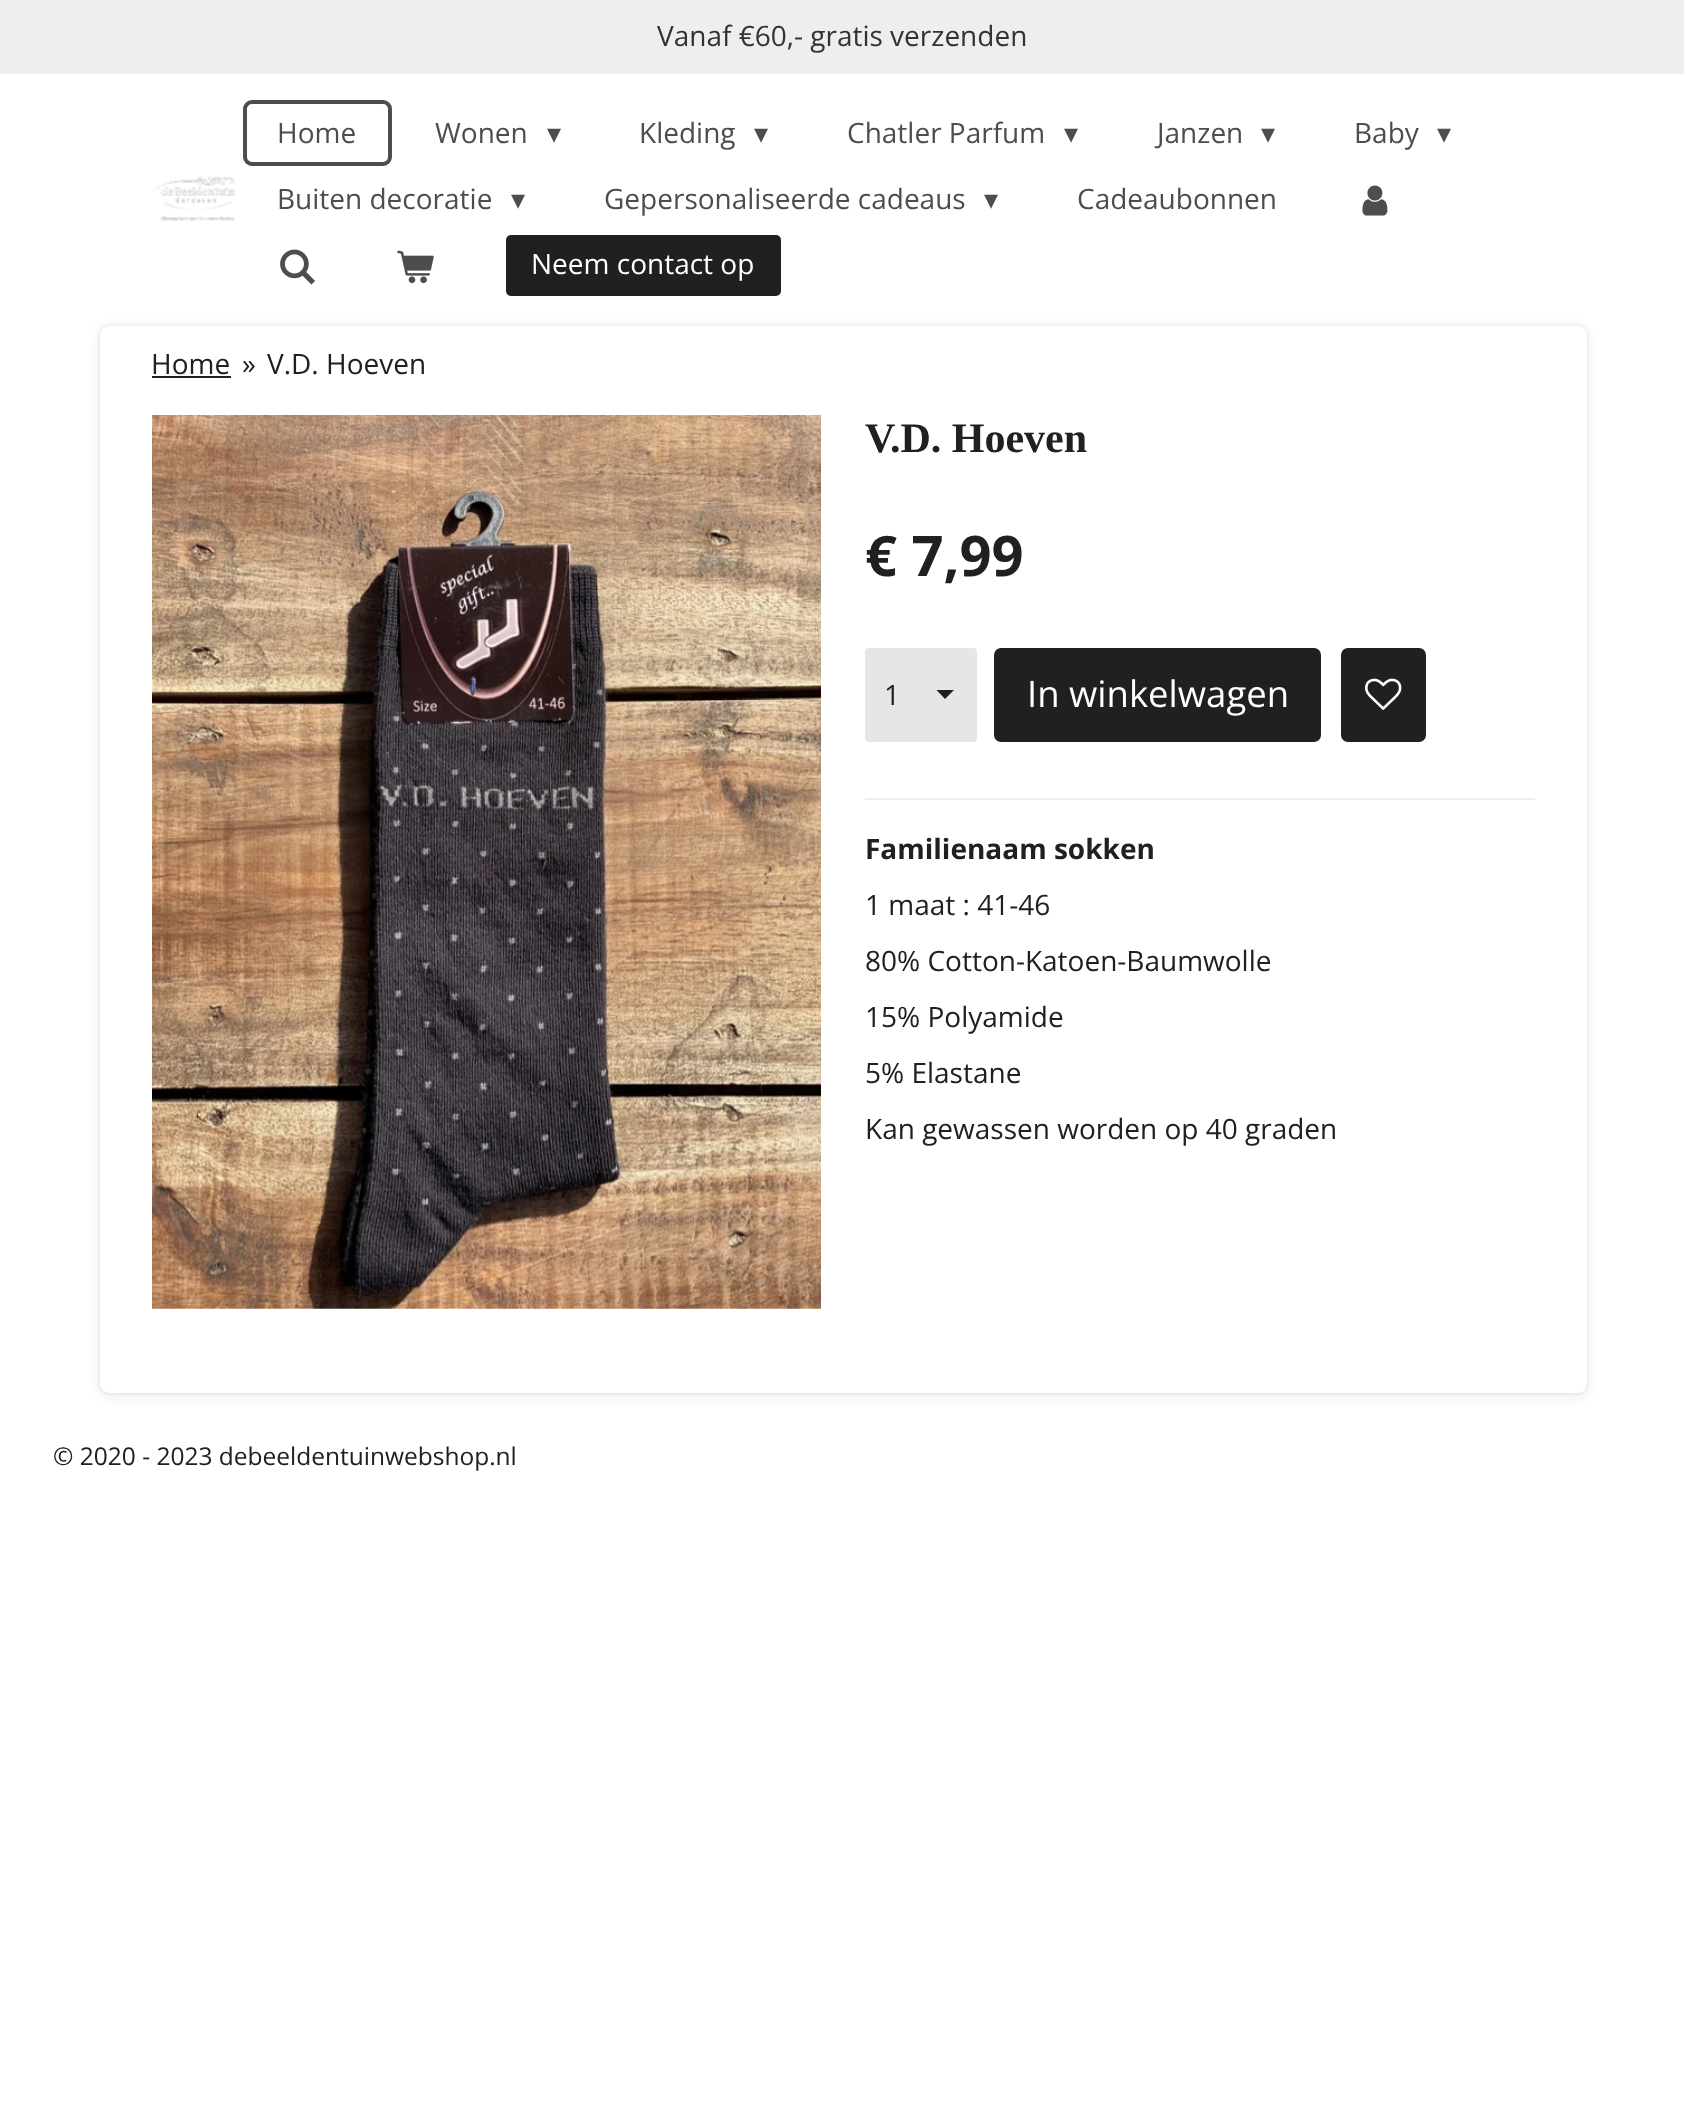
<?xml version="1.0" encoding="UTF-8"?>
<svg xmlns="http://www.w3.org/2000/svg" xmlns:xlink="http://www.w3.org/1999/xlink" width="1684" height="2108">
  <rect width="100%" height="100%" fill="#ffffff" />
  <rect width="1684" height="74" fill="#eeeeee" />
  <image x="153" y="176" width="82" height="45" xlink:href="image1.png" />
  <rect x="245" y="102" width="145" height="62" rx="7" fill="none" stroke="#4d4d4d" stroke-width="4" />
  <image x="1362" y="185" width="26" height="31" xlink:href="image2.png" />
  <image x="280" y="249" width="35" height="36" xlink:href="image3.png" />
  <image x="397" y="250" width="37" height="34" xlink:href="image4.png" />
  <rect x="506" y="235" width="275" height="61" rx="5" fill="#202020" />
  <rect x="100" y="326" width="1487" height="1067" rx="9" fill="#000000" fill-opacity="0.1" filter="blur(2px)" />
  <rect x="100" y="329" width="1487" height="1068" rx="9" fill="#000000" fill-opacity="0.07" filter="blur(7px)" />
  <rect x="100" y="326" width="1487" height="1067" rx="9" fill="#ffffff" />
  <rect x="152" y="376" width="79" height="2" fill="#202020" />
  <image x="152" y="415" width="669" height="894" xlink:href="image5.png" />
  <rect x="865" y="648" width="112" height="94" rx="4" fill="#e6e6e6" />
  <path d="M 945 699 l -8.5 -9 h 17.5 z" fill="#202020" />
  <rect x="994" y="648" width="327" height="94" rx="7" fill="#202020" />
  <rect x="1341" y="648" width="85" height="94" rx="7" fill="#202020" />
  <image x="1365" y="678" width="37" height="32" xlink:href="image6.png" />
  <rect x="865" y="798" width="670" height="2" fill="#efefef" />
  <text x="657" y="46" style="font-family: Open Sans; font-size: 28px; fill: #333333">Vanaf €60,- gratis verzenden</text>
  <text x="277" y="143" style="font-family: Open Sans; font-size: 28px; fill: #4d4d4d">Home</text>
  <text x="435" y="143" style="font-family: Open Sans; font-size: 28px; fill: #4d4d4d">Wonen</text>
  <text x="547" y="143" style="font-family: DejaVu Sans; font-size: 28px; fill: #4d4d4d">▾</text>
  <text x="639" y="143" style="font-family: Open Sans; font-size: 28px; fill: #4d4d4d">Kleding</text>
  <text x="754" y="143" style="font-family: DejaVu Sans; font-size: 28px; fill: #4d4d4d">▾</text>
  <text x="847" y="143" style="font-family: Open Sans; font-size: 28px; fill: #4d4d4d">Chatler Parfum</text>
  <text x="1064" y="143" style="font-family: DejaVu Sans; font-size: 28px; fill: #4d4d4d">▾</text>
  <text x="1157" y="143" style="font-family: Open Sans; font-size: 28px; fill: #4d4d4d">Janzen</text>
  <text x="1261" y="143" style="font-family: DejaVu Sans; font-size: 28px; fill: #4d4d4d">▾</text>
  <text x="1354" y="143" style="font-family: Open Sans; font-size: 28px; fill: #4d4d4d">Baby</text>
  <text x="1437" y="143" style="font-family: DejaVu Sans; font-size: 28px; fill: #4d4d4d">▾</text>
  <text x="277" y="209" style="font-family: Open Sans; font-size: 28px; fill: #4d4d4d">Buiten decoratie</text>
  <text x="511" y="209" style="font-family: DejaVu Sans; font-size: 28px; fill: #4d4d4d">▾</text>
  <text x="604" y="209" style="font-family: Open Sans; font-size: 28px; fill: #4d4d4d">Gepersonaliseerde cadeaus</text>
  <text x="984" y="209" style="font-family: DejaVu Sans; font-size: 28px; fill: #4d4d4d">▾</text>
  <text x="1077" y="209" style="font-family: Open Sans; font-size: 28px; fill: #4d4d4d">Cadeaubonnen</text>
  <text x="531" y="274" style="font-family: Open Sans; font-size: 28px; fill: #ffffff">Neem contact op</text>
  <text x="151" y="374" style="font-family: Open Sans; font-size: 28px; fill: #202020">Home</text>
  <text x="242" y="374" style="font-family: Open Sans; font-size: 28px; fill: #202020">»</text>
  <text x="267" y="374" style="font-family: Open Sans; font-size: 28px; fill: #202020">V.D. Hoeven</text>
  <text x="865" y="452" style="font-family: Liberation Serif; font-size: 42px; font-weight: bold; fill: #202020">V.D. Hoeven</text>
  <text x="865" y="576" style="font-family: Open Sans; font-size: 56px; font-weight: bold; fill: #202020">€ 7,99</text>
  <text x="884" y="705" style="font-family: Open Sans; font-size: 28px; fill: #202020">1</text>
  <text x="1027" y="707" style="font-family: Open Sans; font-size: 36.5px; fill: #ffffff">In winkelwagen</text>
  <text x="865" y="859" style="font-family: Open Sans; font-size: 28px; font-weight: bold; fill: #202020">Familienaam sokken</text>
  <text x="865" y="915" style="font-family: Open Sans; font-size: 28px; fill: #202020">1 maat : 41-46</text>
  <text x="865" y="971" style="font-family: Open Sans; font-size: 28px; fill: #202020">80% Cotton-Katoen-Baumwolle</text>
  <text x="865" y="1027" style="font-family: Open Sans; font-size: 28px; fill: #202020">15% Polyamide</text>
  <text x="865" y="1083" style="font-family: Open Sans; font-size: 28px; fill: #202020">5% Elastane</text>
  <text x="865" y="1139" style="font-family: Open Sans; font-size: 28px; fill: #202020">Kan gewassen worden op 40 graden</text>
  <text x="53" y="1465" style="font-family: Open Sans; font-size: 24.5px; fill: #202020">© 2020 - 2023 debeeldentuinwebshop.nl</text>
</svg>
